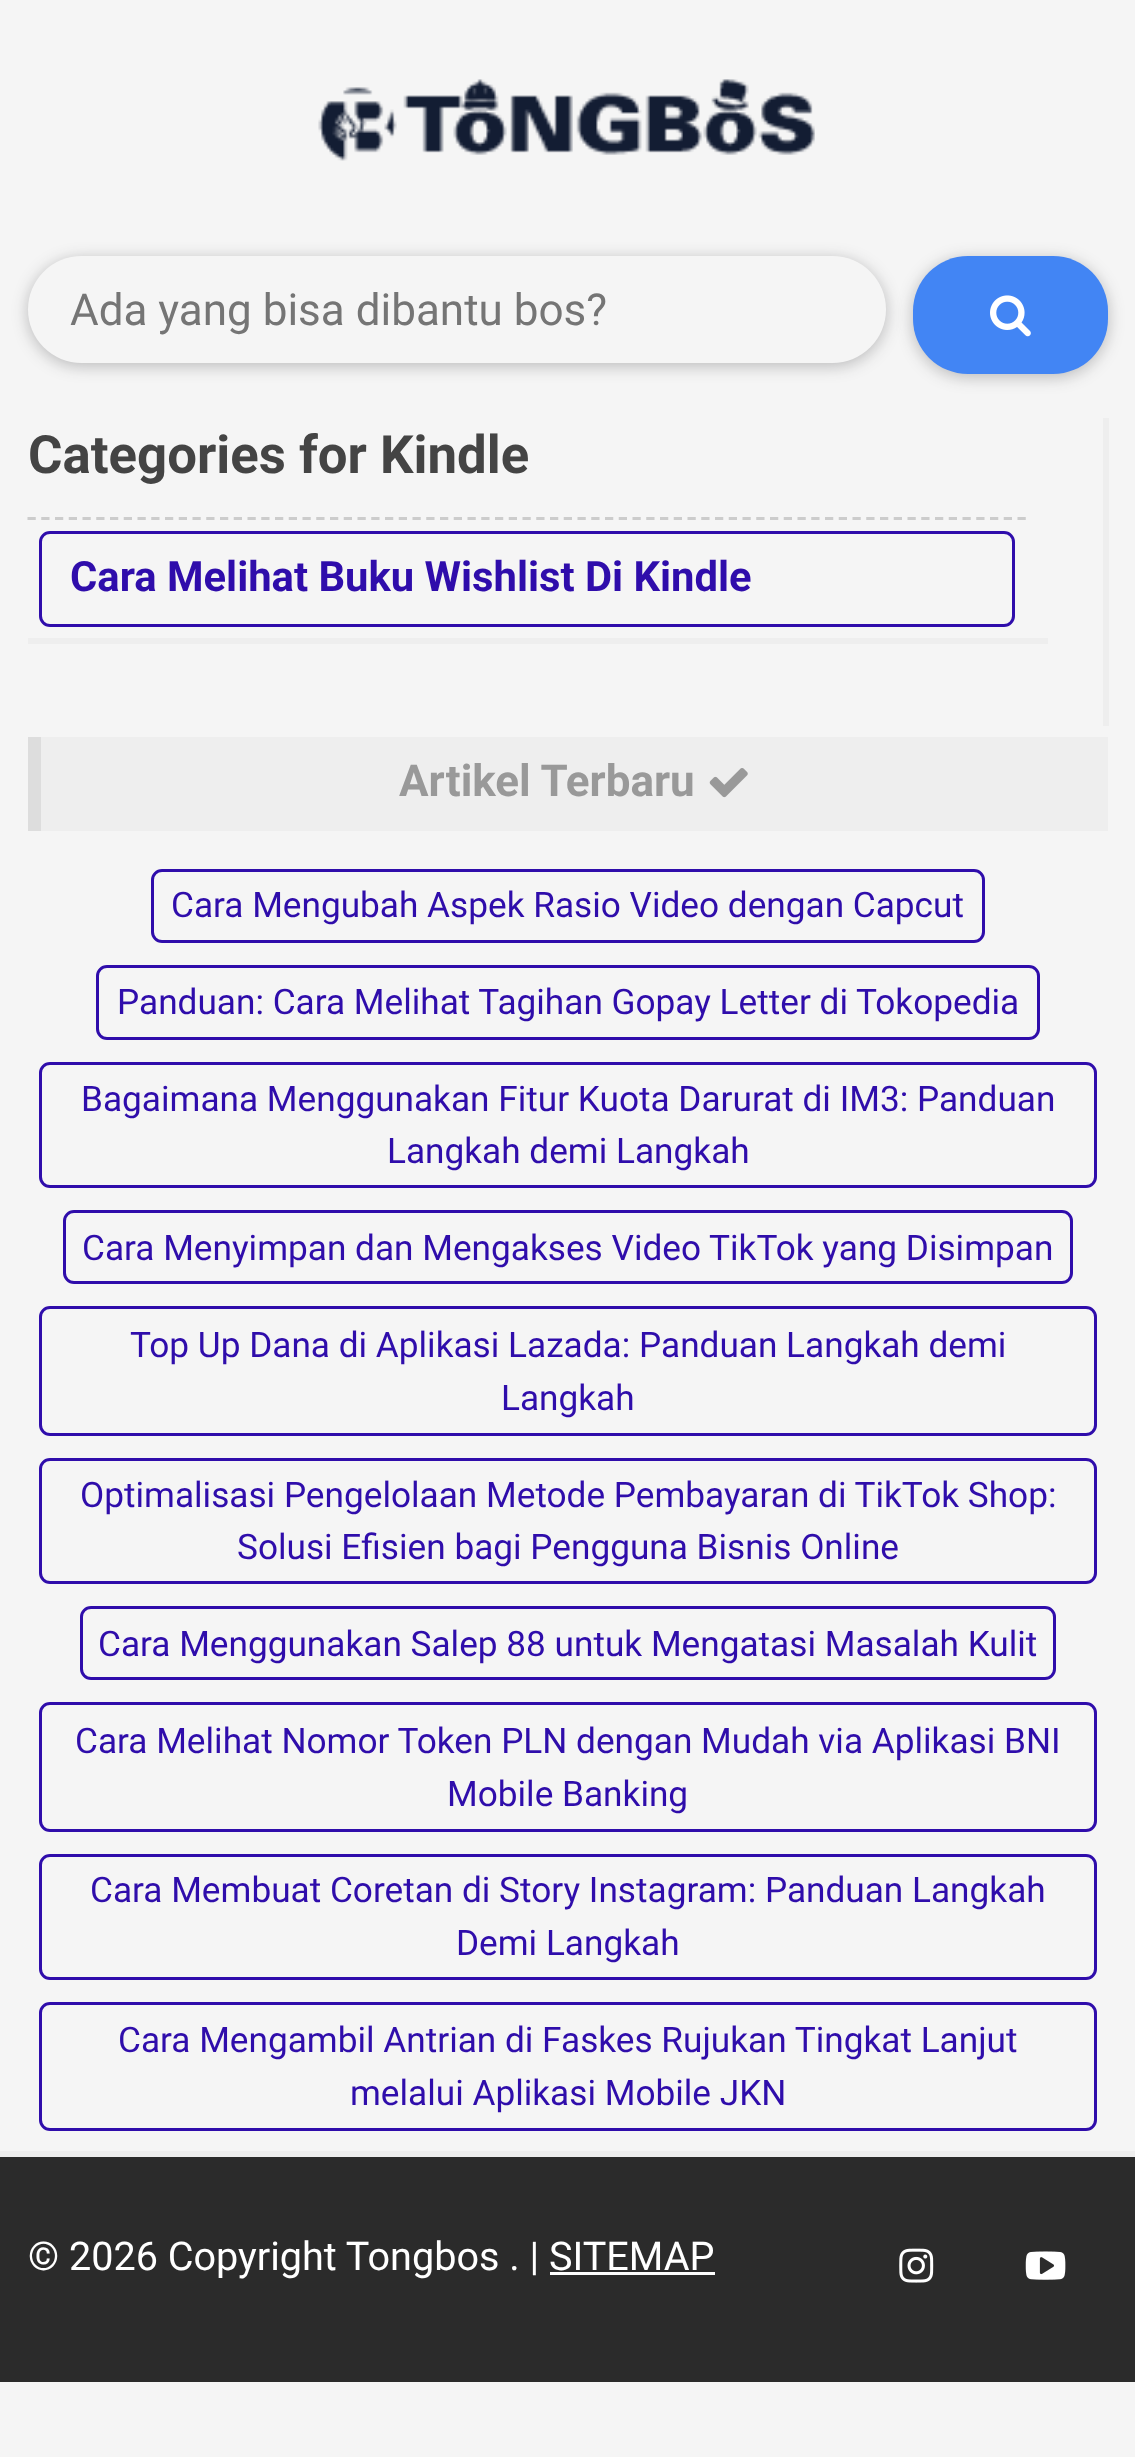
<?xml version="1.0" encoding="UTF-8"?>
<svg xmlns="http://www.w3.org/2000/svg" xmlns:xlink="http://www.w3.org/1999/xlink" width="1135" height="2457">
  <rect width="100%" height="100%" fill="#f5f5f5" />
  <image x="318" y="79" width="497" height="82" xlink:href="image1.png" />
  <rect x="28" y="259" width="858" height="107" rx="53.5" fill="#202124" fill-opacity="0.28" filter="blur(8px)" />
  <rect x="28" y="256" width="858" height="107" rx="53.5" fill="#f5f5f5" />
  <rect x="913" y="259" width="195" height="118" rx="55" fill="#202124" fill-opacity="0.28" filter="blur(8px)" />
  <rect x="913" y="256" width="195" height="118" rx="55" fill="#4285f4" />
  <image x="990" y="295" width="41" height="42" xlink:href="image2.png" />
  <rect x="1103" y="418" width="6" height="308" fill="#eeeeee" />
  <path d="M 27.5 518.5 h 998.5" fill="none" stroke="#cccccc" stroke-width="2.8" stroke-dasharray="8.25 5.5" />
  <rect x="40.5" y="532.5" width="973" height="93" rx="9.5" fill="none" stroke="#2f0dab" stroke-width="3" />
  <rect x="28" y="638" width="1020" height="6" fill="#eeeeee" />
  <rect x="41" y="737" width="1067" height="94" fill="#eeeeee" />
  <rect x="28" y="737" width="13" height="94" fill="#dddddd" />
  <image x="709" y="768" width="39" height="30" xlink:href="image3.png" />
  <rect x="152.5" y="870.5" width="831" height="71" rx="9.5" fill="none" stroke="#2f0dab" stroke-width="3" />
  <rect x="97.5" y="966.5" width="941" height="72" rx="9.5" fill="none" stroke="#2f0dab" stroke-width="3" />
  <rect x="40.5" y="1063.5" width="1055" height="123" rx="9.5" fill="none" stroke="#2f0dab" stroke-width="3" />
  <rect x="64.5" y="1211.5" width="1007" height="71" rx="9.5" fill="none" stroke="#2f0dab" stroke-width="3" />
  <rect x="40.5" y="1307.5" width="1055" height="127" rx="9.5" fill="none" stroke="#2f0dab" stroke-width="3" />
  <rect x="40.5" y="1459.5" width="1055" height="123" rx="9.5" fill="none" stroke="#2f0dab" stroke-width="3" />
  <rect x="81.5" y="1607.5" width="973" height="71" rx="9.5" fill="none" stroke="#2f0dab" stroke-width="3" />
  <rect x="40.5" y="1703.5" width="1055" height="127" rx="9.5" fill="none" stroke="#2f0dab" stroke-width="3" />
  <rect x="40.5" y="1855.5" width="1055" height="123" rx="9.5" fill="none" stroke="#2f0dab" stroke-width="3" />
  <rect x="40.5" y="2003.5" width="1055" height="126" rx="9.5" fill="none" stroke="#2f0dab" stroke-width="3" />
  <rect y="2157" width="1135" height="225" fill="#2b2b2b" />
  <rect y="2151" width="1135" height="6" fill="#eeeeee" />
  <rect x="550" y="2272" width="165" height="3" fill="#ffffff" />
  <image x="899" y="2248" width="35" height="35" xlink:href="image4.png" />
  <image x="1025" y="2251" width="41" height="29" xlink:href="image5.png" />
  <text x="70" y="325" style="font-family: Roboto; font-size: 44px; fill: #757575">Ada yang bisa dibantu bos?</text>
  <text x="28" y="473" style="font-family: Roboto; font-size: 52.75px; font-weight: bold; fill: #444444">Categories for Kindle</text>
  <text x="70" y="591" style="font-family: Roboto; font-size: 41.75px; font-weight: bold; fill: #2f0dab">Cara Melihat Buku Wishlist Di Kindle</text>
  <text x="399" y="796" style="font-family: Roboto; font-size: 44px; font-weight: bold; fill: #999999">Artikel Terbaru</text>
  <text x="171" y="917" style="font-family: Roboto; font-size: 35.2px; fill: #2f0dab">Cara Mengubah Aspek Rasio Video dengan Capcut</text>
  <text x="117" y="1014" style="font-family: Roboto; font-size: 35.2px; fill: #2f0dab">Panduan: Cara Melihat Tagihan Gopay Letter di Tokopedia</text>
  <text x="81" y="1111" style="font-family: Roboto; font-size: 35.2px; fill: #2f0dab">Bagaimana Menggunakan Fitur Kuota Darurat di IM3: Panduan</text>
  <text x="387" y="1163" style="font-family: Roboto; font-size: 35.2px; fill: #2f0dab">Langkah demi Langkah</text>
  <text x="82" y="1260" style="font-family: Roboto; font-size: 35.2px; fill: #2f0dab">Cara Menyimpan dan Mengakses Video TikTok yang Disimpan</text>
  <text x="130" y="1357" style="font-family: Roboto; font-size: 35.2px; fill: #2f0dab">Top Up Dana di Aplikasi Lazada: Panduan Langkah demi</text>
  <text x="501" y="1410" style="font-family: Roboto; font-size: 35.2px; fill: #2f0dab">Langkah</text>
  <text x="80" y="1507" style="font-family: Roboto; font-size: 35.2px; fill: #2f0dab">Optimalisasi Pengelolaan Metode Pembayaran di TikTok Shop:</text>
  <text x="237" y="1559" style="font-family: Roboto; font-size: 35.2px; fill: #2f0dab">Solusi Efisien bagi Pengguna Bisnis Online</text>
  <text x="98" y="1656" style="font-family: Roboto; font-size: 35.2px; fill: #2f0dab">Cara Menggunakan Salep 88 untuk Mengatasi Masalah Kulit</text>
  <text x="75" y="1753" style="font-family: Roboto; font-size: 35.2px; fill: #2f0dab">Cara Melihat Nomor Token PLN dengan Mudah via Aplikasi BNI</text>
  <text x="447" y="1806" style="font-family: Roboto; font-size: 35.2px; fill: #2f0dab">Mobile Banking</text>
  <text x="90" y="1902" style="font-family: Roboto; font-size: 35.2px; fill: #2f0dab">Cara Membuat Coretan di Story Instagram: Panduan Langkah</text>
  <text x="456" y="1955" style="font-family: Roboto; font-size: 35.2px; fill: #2f0dab">Demi Langkah</text>
  <text x="118" y="2052" style="font-family: Roboto; font-size: 35.2px; fill: #2f0dab">Cara Mengambil Antrian di Faskes Rujukan Tingkat Lanjut</text>
  <text x="350" y="2105" style="font-family: Roboto; font-size: 35.2px; fill: #2f0dab">melalui Aplikasi Mobile JKN</text>
  <text x="28" y="2270" style="font-family: Roboto; font-size: 39.6px; fill: #ffffff">© 2026 Copyright Tongbos . |</text>
  <text x="549" y="2270" style="font-family: Roboto; font-size: 39.6px; fill: #ffffff">SITEMAP</text>
</svg>
